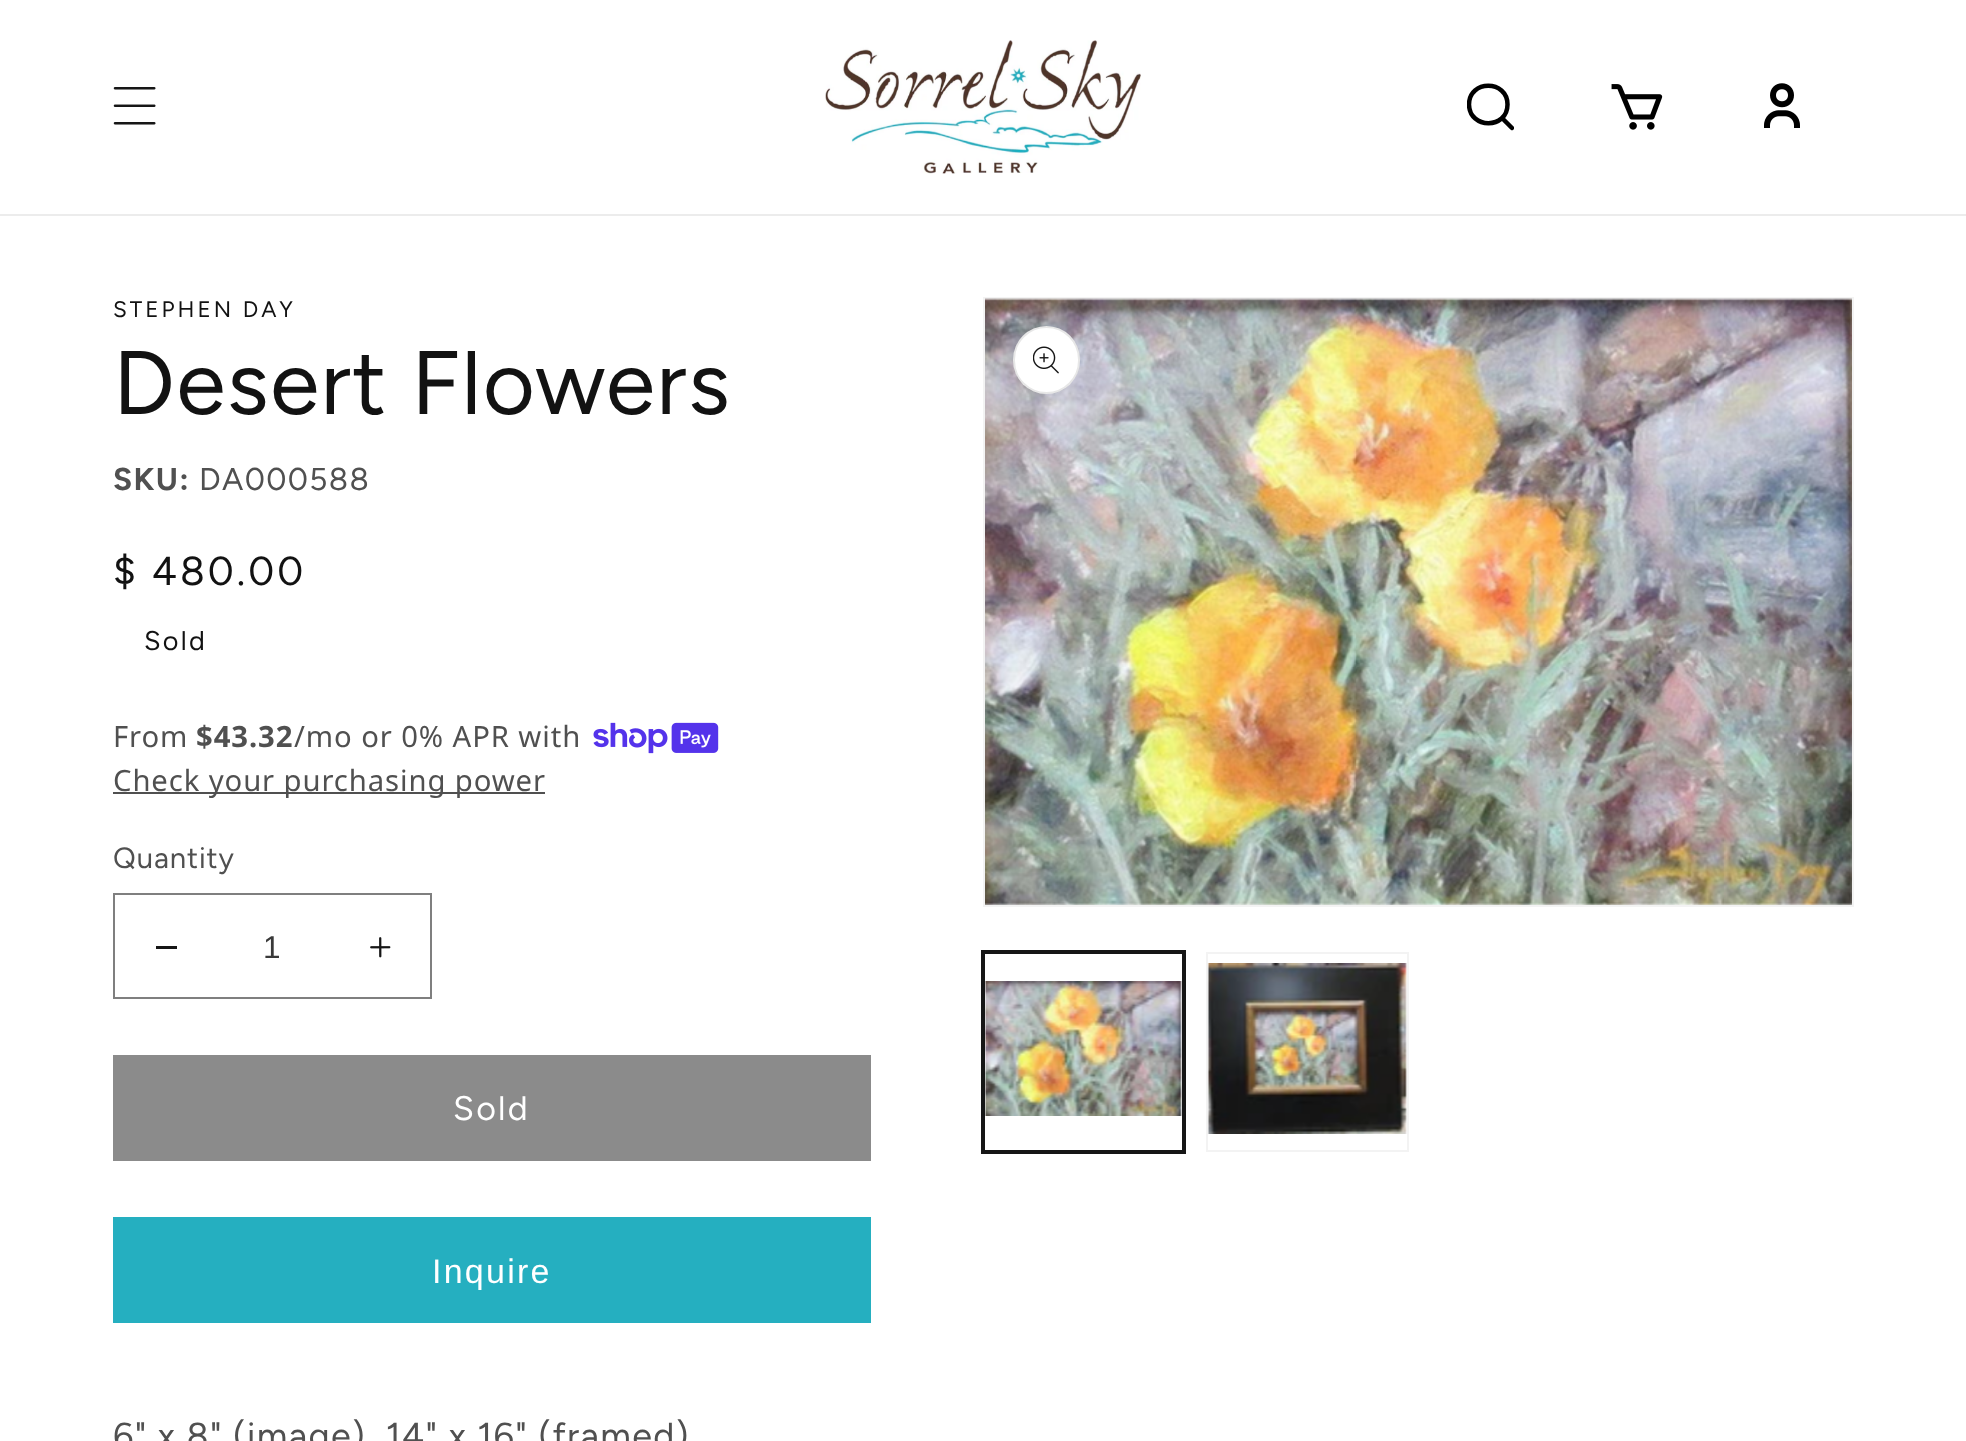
<?xml version="1.0" encoding="UTF-8"?>
<svg xmlns="http://www.w3.org/2000/svg" xmlns:xlink="http://www.w3.org/1999/xlink" width="1966" height="1441">
  <defs>
    <clipPath id="clip1"><rect x="1467" y="83" width="47" height="48" /></clipPath>
  </defs>
  <rect width="100%" height="100%" fill="#ffffff" />
  <rect y="214" width="1966" height="2" fill="#ececec" />
  <image x="113" y="87" width="43" height="38" xlink:href="image1.png" />
  <image x="825" y="40" width="316" height="134" xlink:href="image2.png" />
  <g clip-path="url(#clip1)">
    <path d="M 1512 128 l -10 -10 m 5.5 -13.5 c 0 25 -38 25 -38.5 0 c 0 -25 38.5 -25 38.5 0 z" fill="none" stroke="#000000" stroke-width="4.5" stroke-linecap="round" />
  </g>
  <image x="1611" y="84" width="52" height="46" xlink:href="image3.png" />
  <image x="1764" y="83" width="36" height="45" xlink:href="image4.png" />
  <image x="593" y="722" width="126" height="32" xlink:href="image5.png" />
  <rect x="113" y="792" width="432" height="2" fill="#505050" />
  <rect x="156" y="946" width="21" height="3" fill="#161616" />
  <image x="370" y="937" width="21" height="21" xlink:href="image6.png" />
  <rect x="114" y="894" width="317" height="104" fill="none" stroke="#7f7f7f" stroke-width="2" />
  <rect x="113" y="1055" width="758" height="106" fill="#8b8b8b" />
  <rect x="113" y="1217" width="758" height="106" fill="#25afc0" />
  <rect x="984" y="298" width="869" height="608" fill="none" stroke="#f3f3f3" stroke-width="2" />
  <image x="985" y="298" width="867" height="607" xlink:href="image7.png" />
  <rect x="1013" y="326" width="67" height="68" rx="33.5" fill="#ffffff" />
  <rect x="1014" y="327" width="65" height="66" rx="32.5" fill="none" stroke="#161616" stroke-opacity="0.1" stroke-width="2" />
  <image x="1033" y="346" width="26" height="28" xlink:href="image8.png" />
  <rect x="982" y="951" width="203" height="202" fill="none" stroke="#161616" stroke-width="2" />
  <rect x="984" y="953" width="199" height="198" fill="none" stroke="#161616" stroke-width="2" />
  <image x="985" y="981" width="197" height="135" xlink:href="image9.png" />
  <rect x="1207" y="953" width="201" height="198" fill="none" stroke="#f3f3f3" stroke-width="2" />
  <image x="1207" y="963" width="200" height="171" xlink:href="image10.png" />
  <text x="113" y="317" style="font-family: Figtree; font-size: 22.5px; letter-spacing: 3px; fill: #121212">STEPHEN DAY</text>
  <text x="113" y="414" style="font-family: Figtree; font-size: 90px; letter-spacing: 1.35px; fill: #121212">Desert Flowers</text>
  <text x="113" y="490" style="font-family: Figtree; font-size: 31.5px; font-weight: bold; letter-spacing: 1.35px; fill: #505050">SKU:</text>
  <text x="199" y="490" style="font-family: Figtree; font-size: 31.5px; letter-spacing: 1.35px; fill: #505050">DA000588</text>
  <text x="113" y="585" style="font-family: Figtree; font-size: 40.5px; letter-spacing: 3px; fill: #121212">$ 480.00</text>
  <text x="144" y="650" style="font-family: Figtree; font-size: 27px; letter-spacing: 2.25px; fill: #121212">Sold</text>
  <text x="113" y="747" style="font-family: Noto Sans; font-size: 29.25px; letter-spacing: 0.9px; fill: #505050">From</text>
  <text x="196" y="747" style="font-family: Noto Sans; font-size: 29.25px; font-weight: bold; letter-spacing: 0.9px; fill: #505050">$43.32</text>
  <text x="294" y="747" style="font-family: Noto Sans; font-size: 29.25px; letter-spacing: 0.9px; fill: #505050">/mo or 0% APR with</text>
  <text x="113" y="791" style="font-family: Noto Sans; font-size: 29.25px; letter-spacing: 0.9px; fill: #505050">Check your purchasing power</text>
  <text x="113" y="868" style="font-family: Figtree; font-size: 29.25px; letter-spacing: 0.9px; fill: #505050">Quantity</text>
  <text x="263" y="958" style="font-family: Liberation Sans; font-size: 31.5px; fill: #393939">1</text>
  <text x="453" y="1120" style="font-family: Figtree; font-size: 34px; letter-spacing: 2.25px; fill: #ffffff">Sold</text>
  <text x="432" y="1283" style="font-family: Liberation Sans; font-size: 34px; letter-spacing: 2.25px; fill: #ffffff">Inquire</text>
  <text x="113" y="1448" style="font-family: Figtree; font-size: 36px; letter-spacing: 1.35px; fill: #505050">6" x 8" (image), 14" x 16" (framed)</text>
</svg>
